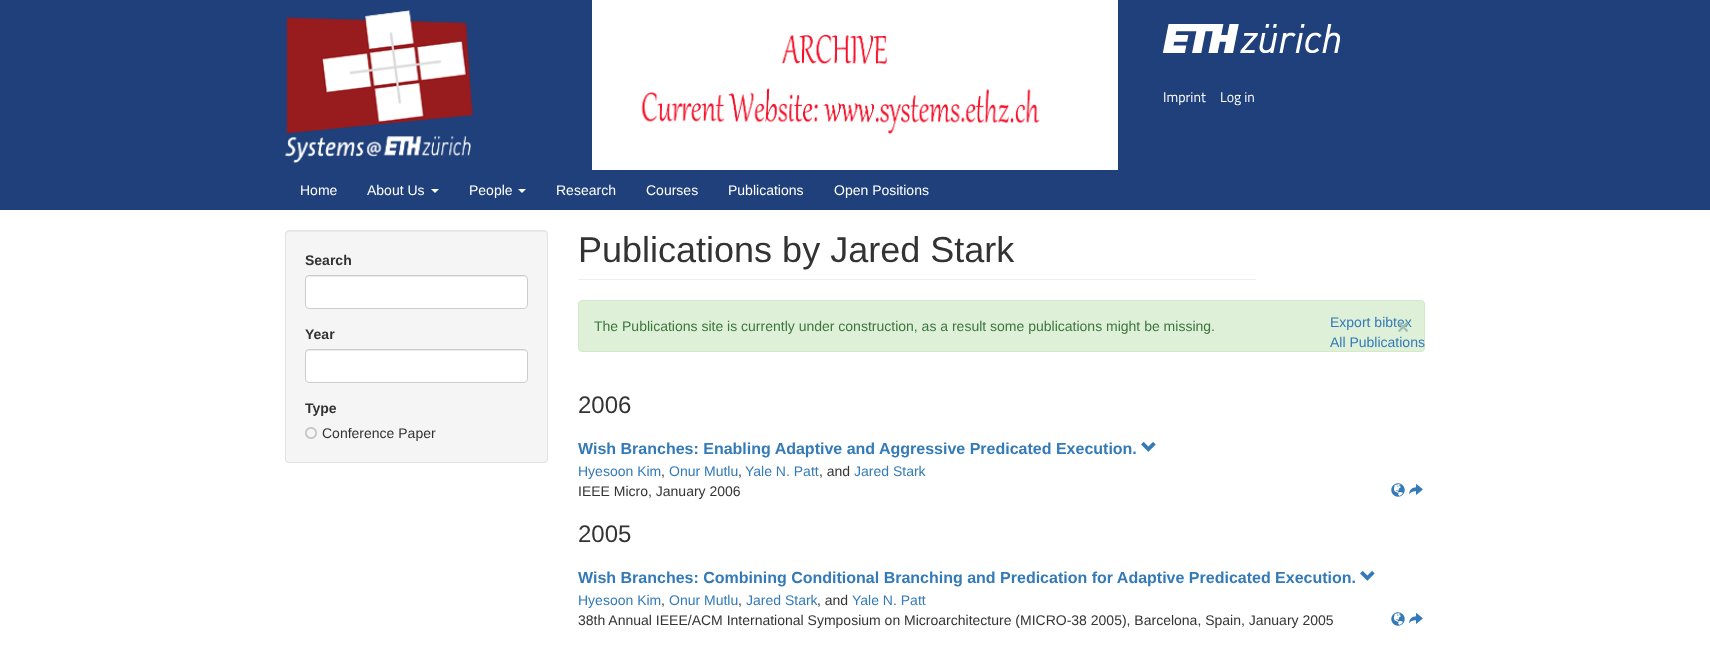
<?xml version="1.0" encoding="UTF-8"?>
<svg xmlns="http://www.w3.org/2000/svg" xmlns:xlink="http://www.w3.org/1999/xlink" width="1710" height="646">
  <rect width="100%" height="100%" fill="#ffffff" />
  <rect width="1710" height="210" fill="#1f407a" />
  <image x="285" y="10" width="188" height="153" xlink:href="image1.png" />
  <image x="592" y="0" width="526" height="170" xlink:href="image2.png" />
  <image x="1163" y="24" width="177" height="29" xlink:href="image3.png" />
  <path d="M 431 189 h 8 l -4 4 z" fill="#ffffff" />
  <path d="M 518 189 h 8 l -4 4 z" fill="#ffffff" />
  <rect x="285" y="230" width="263" height="233" rx="4" fill="#f5f5f5" />
  <path d="M 289 232 h 256 l 2 1 v 2 v -1 c 0 -2 -1 -3 -3 -3 h -255 c -2 0 -3 1 -3 3 v 1 c 0 -2 1 -3 3 -3 z" fill="#e9e9e9" />
  <rect x="285.5" y="230.5" width="262" height="232" rx="3.5" fill="none" stroke="#e3e3e3" />
  <rect x="305" y="275" width="223" height="34" rx="4" fill="#ffffff" />
  <path d="M 309 277 h 215 c 2 0 3 1 3 3 v -1 c 0 -2 -1 -3 -3 -3 h -215 c -2 0 -3 1 -3 3 v 1 c 0 -2 1 -3 3 -3 z" fill="#ececec" />
  <rect x="305.5" y="275.5" width="222" height="33" rx="3.5" fill="none" stroke="#cccccc" />
  <rect x="305" y="349" width="223" height="34" rx="4" fill="#ffffff" />
  <path d="M 309 351 h 215 c 2 0 3 1 3 3 v -1 c 0 -2 -1 -3 -3 -3 h -215 c -2 0 -3 1 -3 3 v 1 c 0 -2 1 -3 3 -3 z" fill="#ececec" />
  <rect x="305.5" y="349.5" width="222" height="33" rx="3.5" fill="none" stroke="#cccccc" />
  <image x="305" y="427" width="12" height="12" xlink:href="image4.png" />
  <rect x="578" y="279" width="678" height="1" fill="#eeeeee" />
  <image x="1141" y="441" width="15" height="11" xlink:href="image5.png" />
  <image x="1391" y="483" width="14" height="14" xlink:href="image6.png" />
  <image x="1409" y="484" width="14" height="11" xlink:href="image7.png" />
  <image x="1360" y="570" width="15" height="11" xlink:href="image5.png" />
  <image x="1391" y="612" width="14" height="14" xlink:href="image6.png" />
  <image x="1409" y="613" width="14" height="11" xlink:href="image7.png" />
  <rect x="578.5" y="300.5" width="846" height="51" rx="3.5" fill="#dff0d8" stroke="#d6e9c6" />
  <text x="1163" y="102" style="font-family: Titillium Web; font-size: 14px; fill: #ffffff">Imprint</text>
  <text x="1220" y="102" style="font-family: Titillium Web; font-size: 14px; fill: #ffffff">Log in</text>
  <text x="300" y="195" style="font-family: Liberation Sans; font-size: 14px; fill: #ffffff">Home</text>
  <text x="367" y="195" style="font-family: Liberation Sans; font-size: 14px; fill: #ffffff">About Us</text>
  <text x="469" y="195" style="font-family: Liberation Sans; font-size: 14px; fill: #ffffff">People</text>
  <text x="556" y="195" style="font-family: Liberation Sans; font-size: 14px; fill: #ffffff">Research</text>
  <text x="646" y="195" style="font-family: Liberation Sans; font-size: 14px; fill: #ffffff">Courses</text>
  <text x="728" y="195" style="font-family: Liberation Sans; font-size: 14px; fill: #ffffff">Publications</text>
  <text x="834" y="195" style="font-family: Liberation Sans; font-size: 14px; fill: #ffffff">Open Positions</text>
  <text x="305" y="265" style="font-family: Liberation Sans; font-size: 14px; font-weight: bold; fill: #333333">Search</text>
  <text x="305" y="339" style="font-family: Liberation Sans; font-size: 14px; font-weight: bold; fill: #333333">Year</text>
  <text x="305" y="413" style="font-family: Liberation Sans; font-size: 14px; font-weight: bold; fill: #333333">Type</text>
  <text x="322" y="438" style="font-family: Liberation Sans; font-size: 14px; fill: #333333">Conference Paper</text>
  <text x="578" y="262" style="font-family: Liberation Sans; font-size: 36px; fill: #333333">Publications by Jared Stark</text>
  <text x="1330" y="327" style="font-family: Liberation Sans; font-size: 14px; fill: #337ab7">Export bibtex</text>
  <text x="1330" y="347" style="font-family: Liberation Sans; font-size: 14px; fill: #337ab7">All Publications</text>
  <text x="578" y="413" style="font-family: Liberation Sans; font-size: 24px; fill: #333333">2006</text>
  <text x="578" y="454" style="font-family: Liberation Sans; font-size: 16px; font-weight: bold; fill: #337ab7">Wish Branches: Enabling Adaptive and Aggressive Predicated Execution.</text>
  <text x="578" y="476" style="font-family: Liberation Sans; font-size: 14px; fill: #337ab7">Hyesoon Kim</text>
  <text x="661" y="476" style="font-family: Liberation Sans; font-size: 14px; fill: #333333">,</text>
  <text x="669" y="476" style="font-family: Liberation Sans; font-size: 14px; fill: #337ab7">Onur Mutlu</text>
  <text x="738" y="476" style="font-family: Liberation Sans; font-size: 14px; fill: #333333">,</text>
  <text x="745" y="476" style="font-family: Liberation Sans; font-size: 14px; fill: #337ab7">Yale N. Patt</text>
  <text x="819" y="476" style="font-family: Liberation Sans; font-size: 14px; fill: #333333">, and</text>
  <text x="854" y="476" style="font-family: Liberation Sans; font-size: 14px; fill: #337ab7">Jared Stark</text>
  <text x="578" y="496" style="font-family: Liberation Sans; font-size: 14px; fill: #333333">IEEE Micro, January 2006</text>
  <text x="578" y="542" style="font-family: Liberation Sans; font-size: 24px; fill: #333333">2005</text>
  <text x="578" y="583" style="font-family: Liberation Sans; font-size: 16px; font-weight: bold; fill: #337ab7">Wish Branches: Combining Conditional Branching and Predication for Adaptive Predicated Execution.</text>
  <text x="578" y="605" style="font-family: Liberation Sans; font-size: 14px; fill: #337ab7">Hyesoon Kim</text>
  <text x="661" y="605" style="font-family: Liberation Sans; font-size: 14px; fill: #333333">,</text>
  <text x="669" y="605" style="font-family: Liberation Sans; font-size: 14px; fill: #337ab7">Onur Mutlu</text>
  <text x="738" y="605" style="font-family: Liberation Sans; font-size: 14px; fill: #333333">,</text>
  <text x="746" y="605" style="font-family: Liberation Sans; font-size: 14px; fill: #337ab7">Jared Stark</text>
  <text x="817" y="605" style="font-family: Liberation Sans; font-size: 14px; fill: #333333">, and</text>
  <text x="852" y="605" style="font-family: Liberation Sans; font-size: 14px; fill: #337ab7">Yale N. Patt</text>
  <text x="578" y="625" style="font-family: Liberation Sans; font-size: 14px; fill: #333333">38th Annual IEEE/ACM International Symposium on Microarchitecture (MICRO-38 2005), Barcelona, Spain, January 2005</text>
  <text x="594" y="331" style="font-family: Liberation Sans; font-size: 14px; fill: #3c763d">The Publications site is currently under construction, as a result some publications might be missing.</text>
  <text x="1397" y="334" style="font-family: Liberation Sans; font-size: 21px; font-weight: bold; fill: #a1bfb1">×</text>
</svg>
